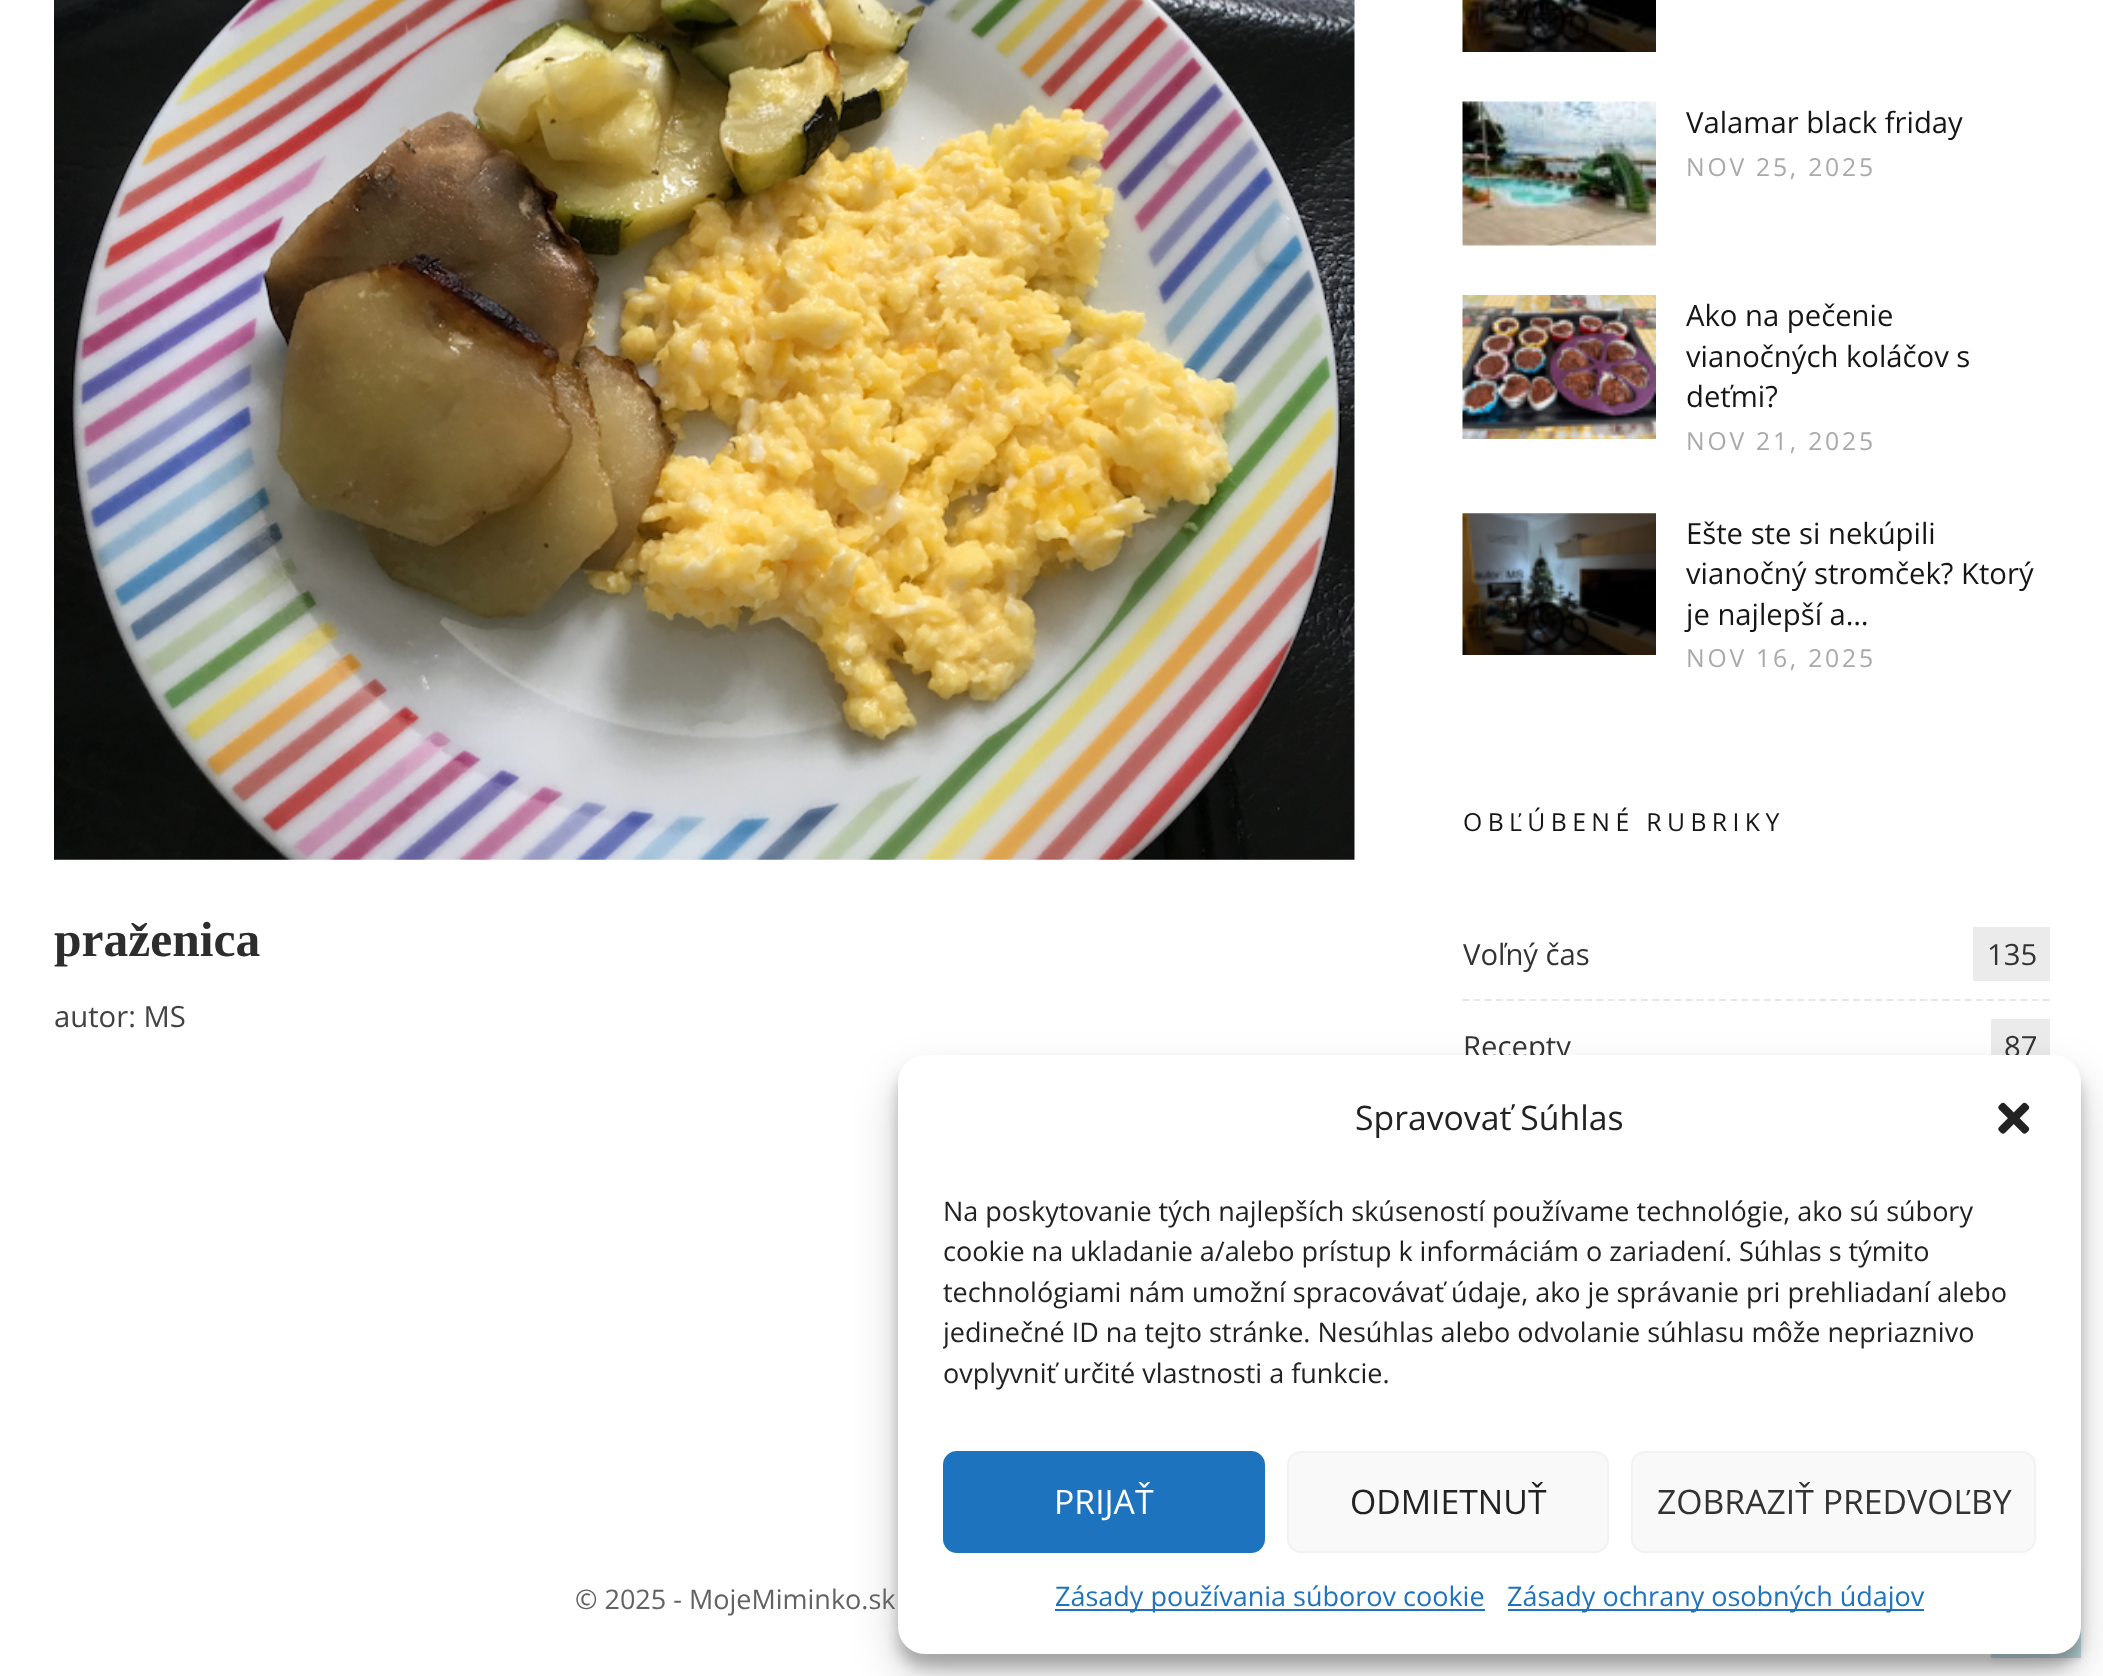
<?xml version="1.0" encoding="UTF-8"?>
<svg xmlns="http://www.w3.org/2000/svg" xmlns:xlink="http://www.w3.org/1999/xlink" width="2103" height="1676">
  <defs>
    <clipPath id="clip1"><rect x="943" y="1193" width="1093" height="213" /></clipPath>
  </defs>
  <rect width="100%" height="100%" fill="#ffffff" />
  <image x="54" y="0" width="1301" height="860" xlink:href="image1.png" />
  <image x="1462" y="0" width="194" height="52" xlink:href="image2.png" />
  <image x="1462" y="101" width="194" height="145" xlink:href="image3.png" />
  <image x="1462" y="295" width="194" height="144" xlink:href="image4.png" />
  <image x="1462" y="513" width="194" height="142" xlink:href="image5.png" />
  <path d="M 1462.5 1000 h 587.5" fill="none" stroke="#e6e6e6" stroke-width="2.2" stroke-dasharray="6.75 4.41" />
  <rect x="1973" y="927" width="77" height="54" fill="#ebebeb" />
  <rect x="1991" y="1019" width="59" height="36" fill="#ebebeb" />
  <rect x="1991" y="1571" width="90" height="90" fill="#666666" fill-opacity="0.09" filter="blur(2px)" />
  <rect x="1991" y="1627" width="90" height="31" fill="#bcd8dd" />
  <rect x="898" y="1069" width="1183" height="598" rx="27" fill="#000000" fill-opacity="0.23" filter="blur(7px)" />
  <rect x="898" y="1078" width="1183" height="598" rx="27" fill="#000000" fill-opacity="0.19" filter="blur(22.5px)" />
  <text x="54" y="956" style="font-family: Liberation Serif; font-size: 49.5px; font-weight: bold; fill: #2d2d2d">praženica</text>
  <text x="54" y="1027" style="font-family: Open Sans; font-size: 29.25px; fill: #424242">autor: MS</text>
  <text x="1686" y="133" style="font-family: Open Sans; font-size: 29.25px; fill: #161616">Valamar black friday</text>
  <text x="1686" y="176" style="font-family: Open Sans; font-size: 24.75px; letter-spacing: 2.75px; fill: #a9a9a9">NOV 25, 2025</text>
  <text x="1686" y="326" style="font-family: Open Sans; font-size: 29.25px; fill: #161616">Ako na pečenie</text>
  <text x="1686" y="367" style="font-family: Open Sans; font-size: 29.25px; fill: #161616">vianočných koláčov s</text>
  <text x="1686" y="407" style="font-family: Open Sans; font-size: 29.25px; fill: #161616">deťmi?</text>
  <text x="1686" y="450" style="font-family: Open Sans; font-size: 24.75px; letter-spacing: 2.75px; fill: #a9a9a9">NOV 21, 2025</text>
  <text x="1686" y="544" style="font-family: Open Sans; font-size: 29.25px; fill: #161616">Ešte ste si nekúpili</text>
  <text x="1686" y="584" style="font-family: Open Sans; font-size: 29.25px; fill: #161616">vianočný stromček? Ktorý</text>
  <text x="1686" y="625" style="font-family: Open Sans; font-size: 29.25px; fill: #161616">je najlepší a…</text>
  <text x="1686" y="667" style="font-family: Open Sans; font-size: 24.75px; letter-spacing: 2.75px; fill: #a9a9a9">NOV 16, 2025</text>
  <text x="1463" y="831" style="font-family: Open Sans; font-size: 24.75px; letter-spacing: 5.4px; fill: #161616">OBĽÚBENÉ RUBRIKY</text>
  <text x="1463" y="965" style="font-family: Open Sans; font-size: 29.25px; fill: #333333">Voľný čas</text>
  <text x="1987" y="965" style="font-family: Open Sans; font-size: 29.25px; fill: #333333">135</text>
  <text x="1463" y="1057" style="font-family: Open Sans; font-size: 29.25px; fill: #333333">Recepty</text>
  <text x="2004" y="1057" style="font-family: Open Sans; font-size: 29.25px; fill: #333333">87</text>
  <text x="575" y="1609" style="font-family: Open Sans; font-size: 27px; fill: #626262">© 2025 - MojeMiminko.sk</text>
  <rect x="898" y="1055" width="1183" height="599" rx="27" fill="#ffffff" />
  <text x="1355" y="1130" style="font-family: Open Sans; font-size: 33.75px; fill: #222222">Spravovať Súhlas</text>
  <image x="1998" y="1102" width="32" height="32" xlink:href="image6.png" />
  <text x="943" y="1221" style="font-family: Open Sans; font-size: 27px; fill: #222222">Na poskytovanie tých najlepších skúseností používame technológie, ako sú súbory</text>
  <text x="943" y="1261" style="font-family: Open Sans; font-size: 27px; fill: #222222">cookie na ukladanie a/alebo prístup k informáciám o zariadení. Súhlas s týmito</text>
  <text x="943" y="1302" style="font-family: Open Sans; font-size: 27px; fill: #222222">technológiami nám umožní spracovávať údaje, ako je správanie pri prehliadaní alebo</text>
  <g clip-path="url(#clip1)">
    <text x="943" y="1342" style="font-family: Open Sans; font-size: 27px; fill: #222222">jedinečné ID na tejto stránke. Nesúhlas alebo odvolanie súhlasu môže nepriaznivo</text>
  </g>
  <text x="943" y="1383" style="font-family: Open Sans; font-size: 27px; fill: #222222">ovplyvniť určité vlastnosti a funkcie.</text>
  <rect x="944" y="1452" width="320" height="100" rx="13" fill="#1e73be" stroke="#1e73be" stroke-width="2" />
  <text x="1054" y="1514" style="font-family: Open Sans; font-size: 33.75px; fill: #ffffff">PRIJAŤ</text>
  <rect x="1288" y="1452" width="320" height="100" rx="13" fill="#f9f9f9" stroke="#f2f2f2" stroke-width="2" />
  <text x="1350" y="1514" style="font-family: Open Sans; font-size: 33.75px; fill: #222222">ODMIETNUŤ</text>
  <rect x="1632" y="1452" width="403" height="100" rx="13" fill="#f9f9f9" stroke="#f2f2f2" stroke-width="2" />
  <text x="1657" y="1514" style="font-family: Open Sans; font-size: 33.75px; fill: #333333">ZOBRAZIŤ PREDVOĽBY</text>
  <rect x="1055" y="1609" width="430" height="2" fill="#1e73be" />
  <text x="1055" y="1606" style="font-family: Open Sans; font-size: 27px; fill: #1e73be">Zásady používania súborov cookie</text>
  <rect x="1508" y="1609" width="416" height="2" fill="#1e73be" />
  <text x="1507" y="1606" style="font-family: Open Sans; font-size: 27px; fill: #1e73be">Zásady ochrany osobných údajov</text>
</svg>
